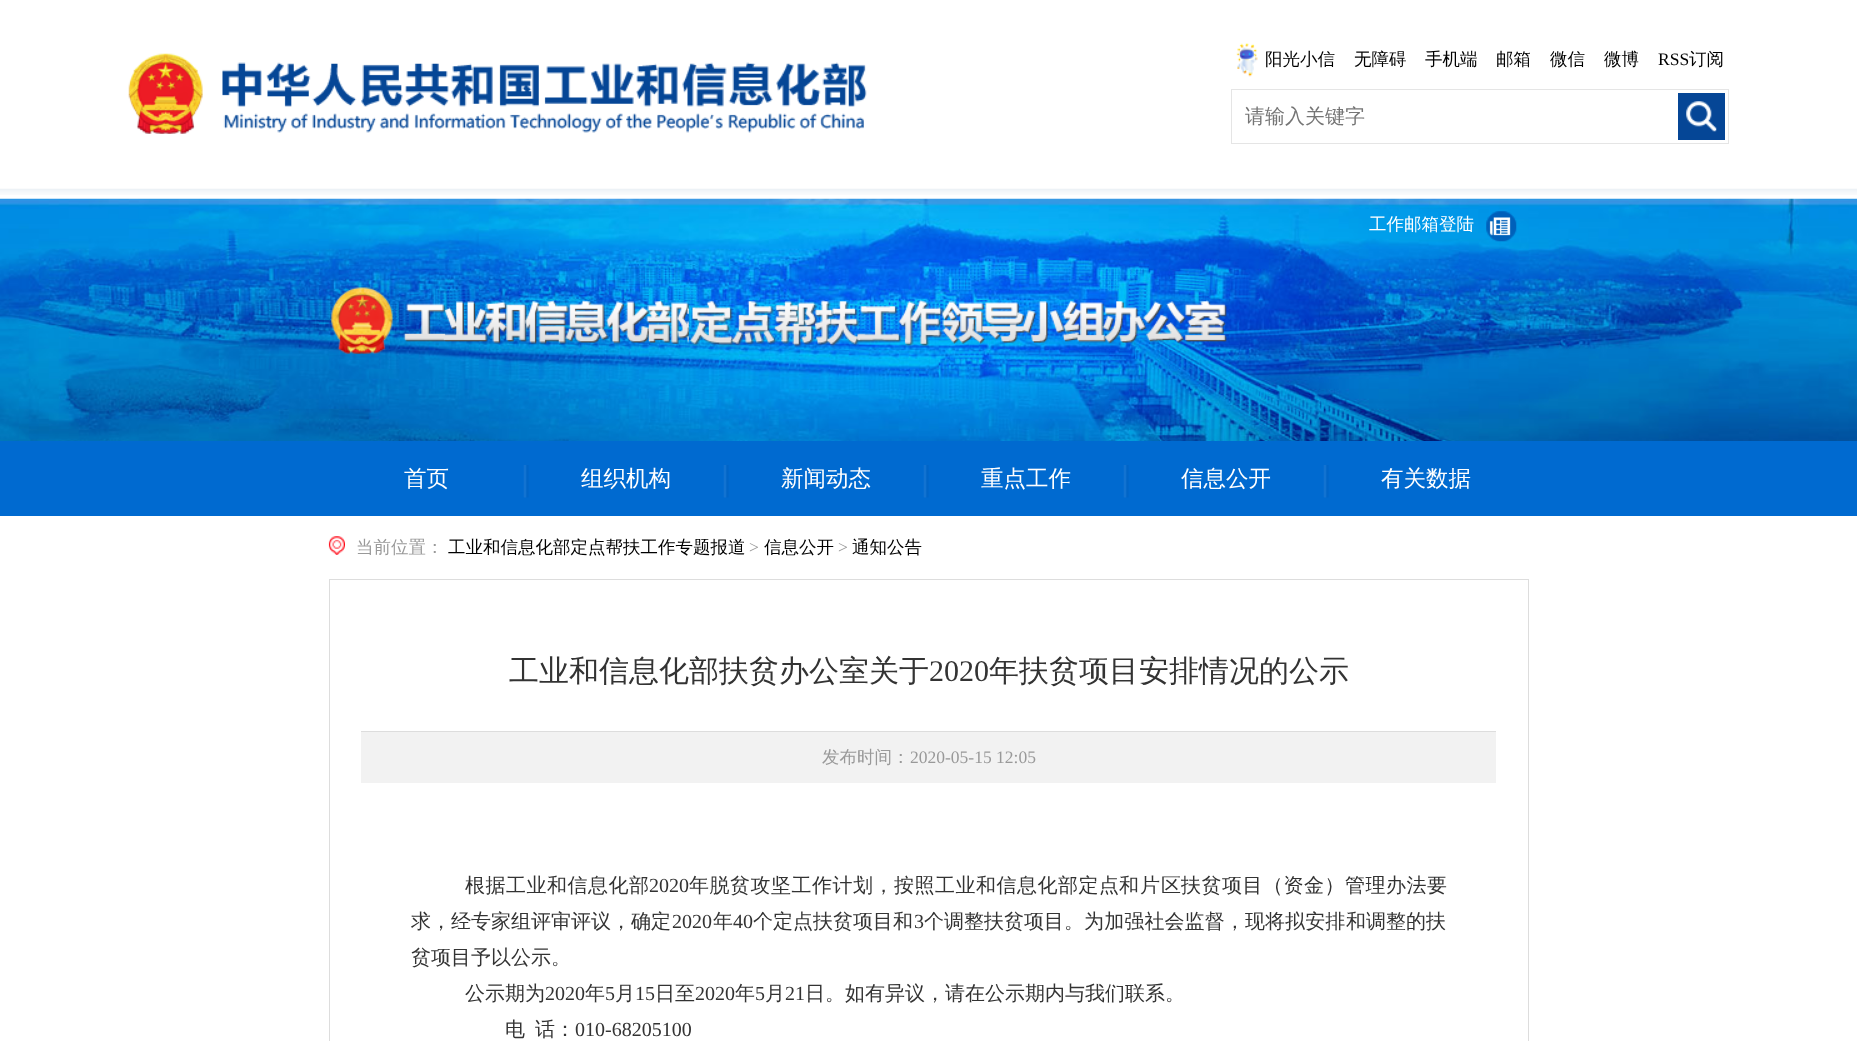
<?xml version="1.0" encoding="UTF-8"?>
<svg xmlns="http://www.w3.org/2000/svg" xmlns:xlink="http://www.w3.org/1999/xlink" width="1857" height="1041">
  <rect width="100%" height="100%" fill="#ffffff" />
  <image x="128" y="53" width="75" height="81" xlink:href="image1.png" />
  <image x="222" y="62" width="645" height="71" xlink:href="image2.png" />
  <image x="1236" y="43" width="22" height="34" xlink:href="image3.png" />
  <rect x="1231.5" y="89.5" width="497" height="54" fill="none" stroke="#e5e5e5" />
  <rect x="1678" y="93" width="47" height="47" fill="#054696" />
  <image x="1686" y="101" width="31" height="31" xlink:href="image4.png" />
  <image x="0" y="188" width="1857" height="7" xlink:href="image5.png" />
  <image x="0" y="198" width="1857" height="243" xlink:href="image6.png" />
  <image x="1486" y="211" width="31" height="31" xlink:href="image7.png" />
  <image x="331" y="287" width="896" height="67" xlink:href="image8.png" />
  <rect y="441" width="1857" height="75" fill="#006ad0" />
  <image x="523" y="465" width="6" height="33" xlink:href="image9.png" />
  <image x="723" y="465" width="6" height="33" xlink:href="image9.png" />
  <image x="923" y="465" width="6" height="33" xlink:href="image9.png" />
  <image x="1123" y="465" width="6" height="33" xlink:href="image9.png" />
  <image x="1323" y="465" width="6" height="33" xlink:href="image10.png" />
  <image x="328" y="536" width="17" height="19" xlink:href="image11.png" />
  <rect x="329.5" y="579.5" width="1199" height="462" fill="none" stroke="#dddddd" />
  <rect x="361" y="732" width="1135" height="51" fill="#f2f2f2" />
  <rect x="361" y="731" width="1135" height="1" fill="#dddddd" />
  <text x="1265" y="65" style="font-family: WenQuanYi Zen Hei; font-size: 17.5px; font-weight: 500; fill: #000000">阳光小信</text>
  <text x="1354" y="65" style="font-family: WenQuanYi Zen Hei; font-size: 17.5px; font-weight: 500; fill: #000000">无障碍</text>
  <text x="1425" y="65" style="font-family: WenQuanYi Zen Hei; font-size: 17.5px; font-weight: 500; fill: #000000">手机端</text>
  <text x="1496" y="65" style="font-family: WenQuanYi Zen Hei; font-size: 17.5px; font-weight: 500; fill: #000000">邮箱</text>
  <text x="1550" y="65" style="font-family: WenQuanYi Zen Hei; font-size: 17.5px; font-weight: 500; fill: #000000">微信</text>
  <text x="1604" y="65" style="font-family: WenQuanYi Zen Hei; font-size: 17.5px; font-weight: 500; fill: #000000">微博</text>
  <text x="1658" y="65" style="font-family: Liberation Serif; font-size: 17.5px; fill: #000000">RSS</text>
  <text x="1689" y="65" style="font-family: WenQuanYi Zen Hei; font-size: 17.5px; font-weight: 500; fill: #000000">订阅</text>
  <text x="1245" y="123" style="font-family: WenQuanYi Zen Hei; font-size: 20px; font-weight: 500; fill: #757575">请输入关键字</text>
  <text x="1369" y="230" style="font-family: WenQuanYi Zen Hei; font-size: 17.5px; font-weight: 500; fill: #ffffff">工作邮箱登陆</text>
  <text x="404" y="486" style="font-family: WenQuanYi Zen Hei; font-size: 22.5px; font-weight: 500; fill: #ffffff">首页</text>
  <text x="581" y="486" style="font-family: WenQuanYi Zen Hei; font-size: 22.5px; font-weight: 500; fill: #ffffff">组织机构</text>
  <text x="781" y="486" style="font-family: WenQuanYi Zen Hei; font-size: 22.5px; font-weight: 500; fill: #ffffff">新闻动态</text>
  <text x="981" y="486" style="font-family: WenQuanYi Zen Hei; font-size: 22.5px; font-weight: 500; fill: #ffffff">重点工作</text>
  <text x="1181" y="486" style="font-family: WenQuanYi Zen Hei; font-size: 22.5px; font-weight: 500; fill: #ffffff">信息公开</text>
  <text x="1381" y="486" style="font-family: WenQuanYi Zen Hei; font-size: 22.5px; font-weight: 500; fill: #ffffff">有关数据</text>
  <text x="356" y="553" style="font-family: WenQuanYi Zen Hei; font-size: 17.5px; font-weight: 500; fill: #999999">当前位置：</text>
  <text x="448" y="553" style="font-family: WenQuanYi Zen Hei; font-size: 17.5px; font-weight: 500; fill: #000000">工业和信息化部定点帮扶工作专题报道</text>
  <text x="749" y="553" style="font-family: Liberation Serif; font-size: 17.5px; fill: #999999">&gt;</text>
  <text x="764" y="553" style="font-family: WenQuanYi Zen Hei; font-size: 17.5px; font-weight: 500; fill: #000000">信息公开</text>
  <text x="838" y="553" style="font-family: Liberation Serif; font-size: 17.5px; fill: #999999">&gt;</text>
  <text x="852" y="553" style="font-family: WenQuanYi Zen Hei; font-size: 17.5px; font-weight: 500; fill: #000000">通知公告</text>
  <text x="509" y="681" style="font-family: WenQuanYi Zen Hei; font-size: 30px; font-weight: 500; fill: #333333">工业和信息化部扶贫办公室关于</text>
  <text x="929" y="681" style="font-family: Liberation Serif; font-size: 30px; fill: #333333">2020</text>
  <text x="989" y="681" style="font-family: WenQuanYi Zen Hei; font-size: 30px; font-weight: 500; fill: #333333">年扶贫项目安排情况的公示</text>
  <text x="822" y="763" style="font-family: WenQuanYi Zen Hei; font-size: 17.5px; font-weight: 500; fill: #999999">发布时间：</text>
  <text x="910" y="763" style="font-family: Liberation Serif; font-size: 17.5px; fill: #999999">2020-05-15 12:05</text>
  <text x="465" y="892" style="font-family: WenQuanYi Zen Hei; font-size: 20px; font-weight: 500; letter-spacing: 0.5px; fill: #333333">根据工业和信息化部</text>
  <text x="649" y="892" style="font-family: Liberation Serif; font-size: 20px; fill: #333333">2020</text>
  <text x="689" y="892" style="font-family: WenQuanYi Zen Hei; font-size: 20px; font-weight: 500; letter-spacing: 0.5px; fill: #333333">年脱贫攻坚工作计划，按照工业和信息化部定点</text>
  <text x="1119" y="892" style="font-family: WenQuanYi Zen Hei; font-size: 20px; font-weight: 500; letter-spacing: 1px; fill: #333333">和片区</text>
  <text x="1181" y="892" style="font-family: WenQuanYi Zen Hei; font-size: 20px; font-weight: 500; letter-spacing: 0.5px; fill: #333333">扶贫项目（资金）管理办法要</text>
  <text x="411" y="928" style="font-family: WenQuanYi Zen Hei; font-size: 20px; font-weight: 500; fill: #333333">求，</text>
  <text x="451" y="928" style="font-family: WenQuanYi Zen Hei; font-size: 20px; font-weight: 500; fill: #333333">经专家组评审评议，确定</text>
  <text x="672" y="928" style="font-family: Liberation Serif; font-size: 20px; fill: #333333">2020</text>
  <text x="713" y="928" style="font-family: WenQuanYi Zen Hei; font-size: 20px; font-weight: 500; fill: #333333">年</text>
  <text x="733" y="928" style="font-family: Liberation Serif; font-size: 20px; fill: #333333">40</text>
  <text x="753" y="928" style="font-family: WenQuanYi Zen Hei; font-size: 20px; font-weight: 500; fill: #333333">个定点扶贫项目和</text>
  <text x="914" y="928" style="font-family: Liberation Serif; font-size: 20px; fill: #333333">3</text>
  <text x="924" y="928" style="font-family: WenQuanYi Zen Hei; font-size: 20px; font-weight: 500; fill: #333333">个调整扶贫项目</text>
  <text x="1064" y="928" style="font-family: WenQuanYi Zen Hei; font-size: 20px; font-weight: 500; letter-spacing: 0.1px; fill: #333333">。为加强社会监督，现将拟安排</text>
  <text x="1346" y="928" style="font-family: WenQuanYi Zen Hei; font-size: 20px; font-weight: 500; fill: #333333">和调整的</text>
  <text x="1426" y="928" style="font-family: WenQuanYi Zen Hei; font-size: 20px; font-weight: 500; fill: #333333">扶</text>
  <text x="411" y="964" style="font-family: WenQuanYi Zen Hei; font-size: 20px; font-weight: 500; fill: #333333">贫项目予以公示。</text>
  <text x="465" y="1000" style="font-family: WenQuanYi Zen Hei; font-size: 20px; font-weight: 500; fill: #333333">公示期为</text>
  <text x="545" y="1000" style="font-family: Liberation Serif; font-size: 20px; fill: #333333">2020</text>
  <text x="585" y="1000" style="font-family: WenQuanYi Zen Hei; font-size: 20px; font-weight: 500; fill: #333333">年</text>
  <text x="605" y="1000" style="font-family: Liberation Serif; font-size: 20px; fill: #333333">5</text>
  <text x="615" y="1000" style="font-family: WenQuanYi Zen Hei; font-size: 20px; font-weight: 500; fill: #333333">月</text>
  <text x="635" y="1000" style="font-family: Liberation Serif; font-size: 20px; fill: #333333">15</text>
  <text x="655" y="1000" style="font-family: WenQuanYi Zen Hei; font-size: 20px; font-weight: 500; fill: #333333">日至</text>
  <text x="695" y="1000" style="font-family: Liberation Serif; font-size: 20px; fill: #333333">2020</text>
  <text x="735" y="1000" style="font-family: WenQuanYi Zen Hei; font-size: 20px; font-weight: 500; fill: #333333">年</text>
  <text x="755" y="1000" style="font-family: Liberation Serif; font-size: 20px; fill: #333333">5</text>
  <text x="765" y="1000" style="font-family: WenQuanYi Zen Hei; font-size: 20px; font-weight: 500; fill: #333333">月</text>
  <text x="785" y="1000" style="font-family: Liberation Serif; font-size: 20px; fill: #333333">21</text>
  <text x="805" y="1000" style="font-family: WenQuanYi Zen Hei; font-size: 20px; font-weight: 500; fill: #333333">日。如有异议，请在公示期内与我们联系。</text>
  <text x="505" y="1036" style="font-family: WenQuanYi Zen Hei; font-size: 20px; font-weight: 500; fill: #333333">电</text>
  <text x="535" y="1036" style="font-family: WenQuanYi Zen Hei; font-size: 20px; font-weight: 500; fill: #333333">话：</text>
  <text x="575" y="1036" style="font-family: Liberation Serif; font-size: 20px; fill: #333333">010-68205100</text>
</svg>
